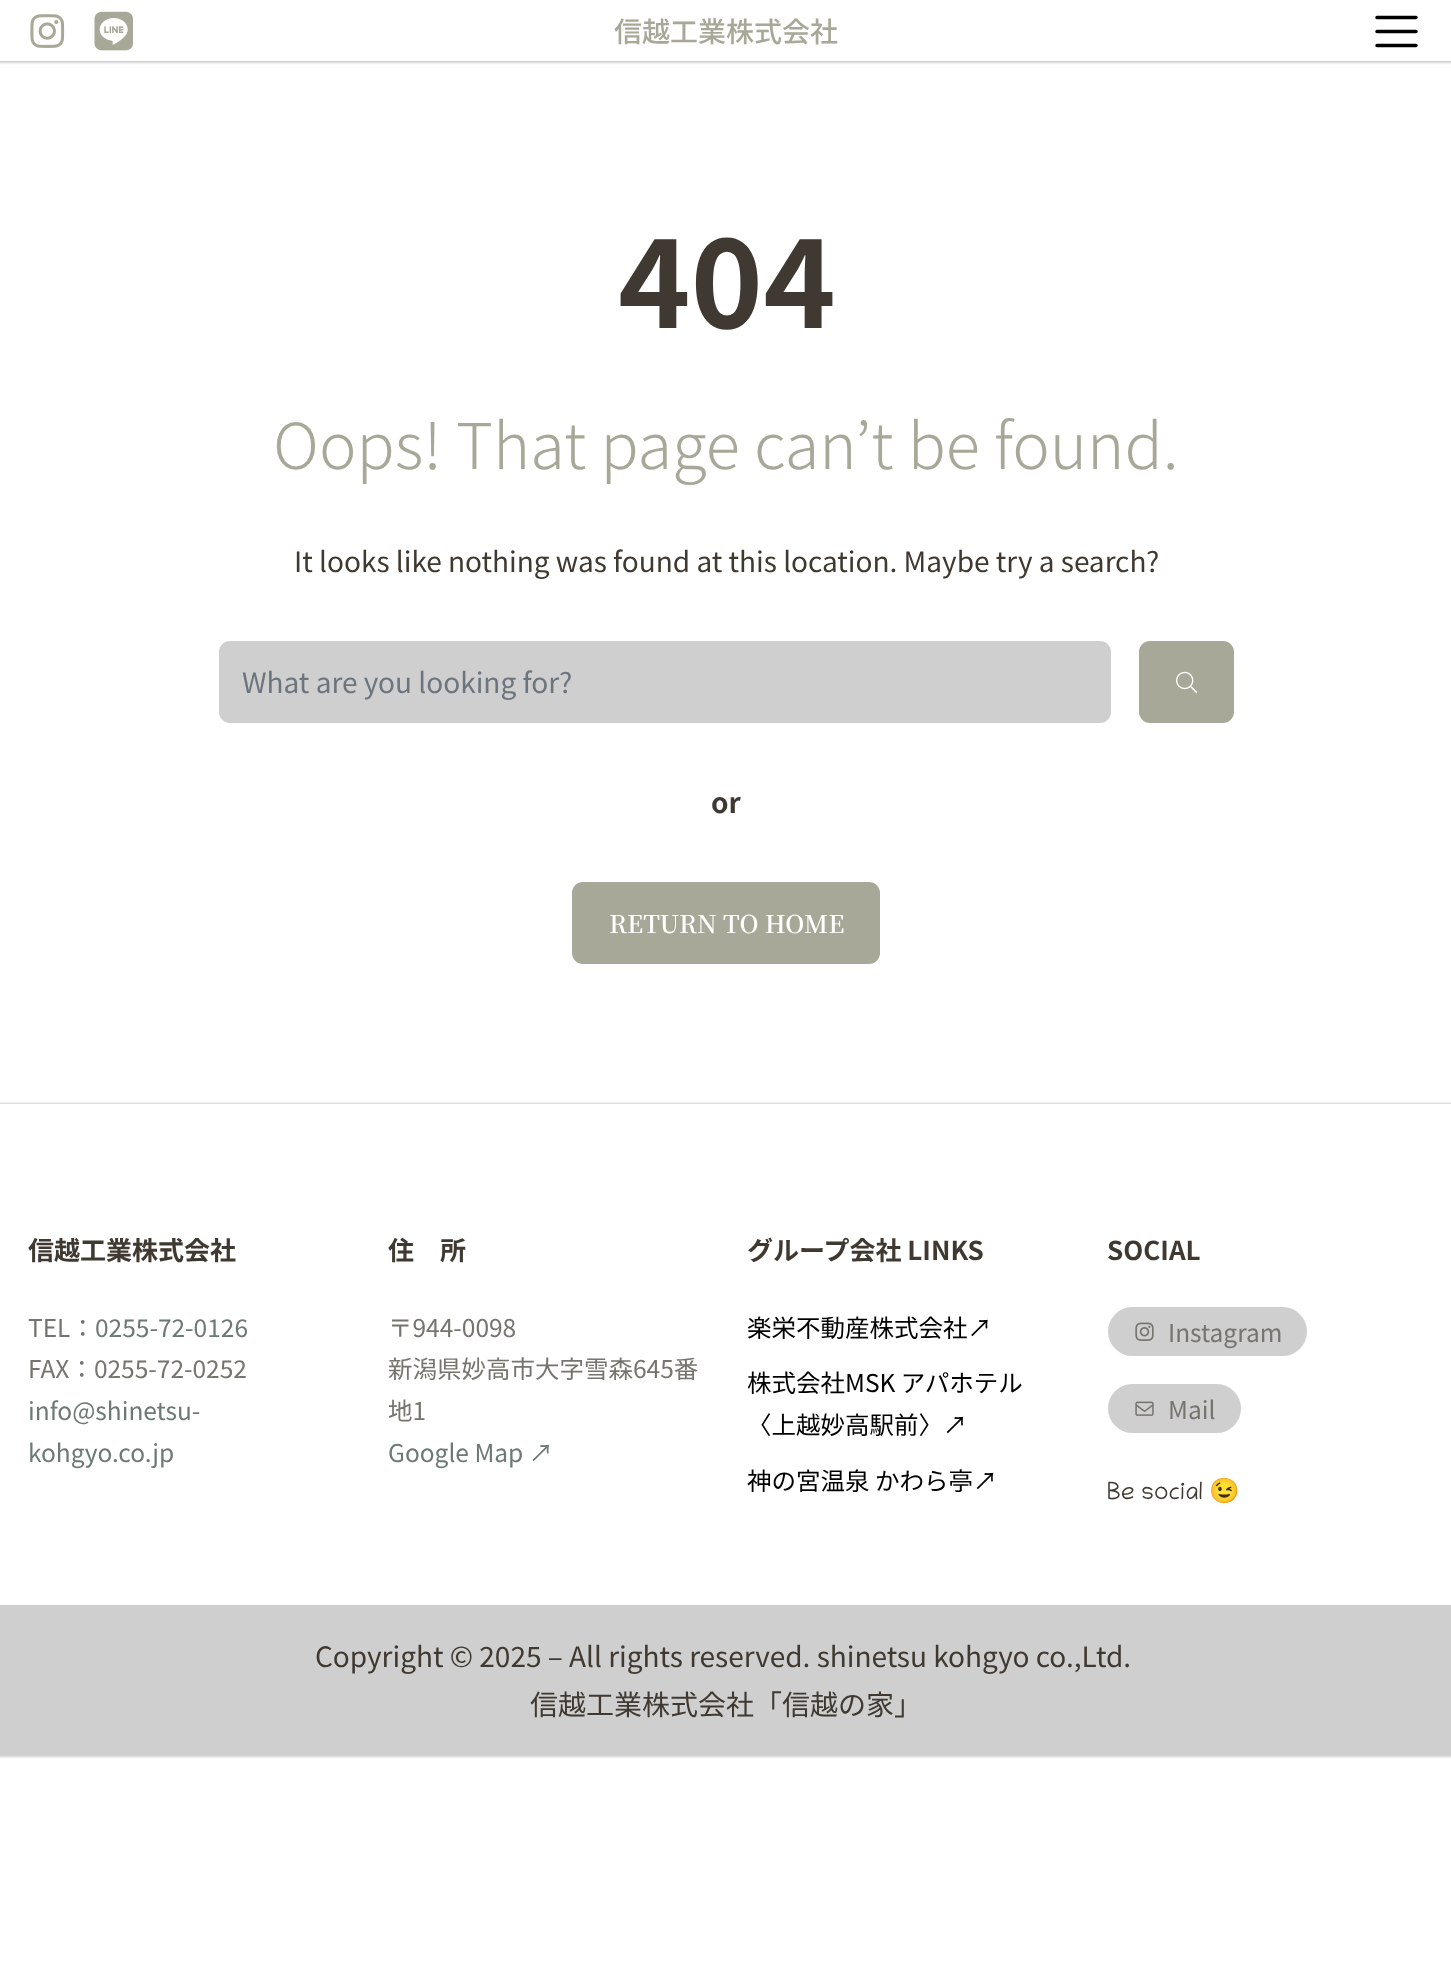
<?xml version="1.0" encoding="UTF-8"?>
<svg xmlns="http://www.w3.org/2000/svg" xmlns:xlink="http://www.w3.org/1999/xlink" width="1451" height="1988">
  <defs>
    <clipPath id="clip1"><rect x="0" y="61" width="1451" height="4" /></clipPath>
  </defs>
  <rect width="100%" height="100%" fill="#ffffff" />
  <g clip-path="url(#clip1)">
    <rect x="-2" y="-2" width="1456" height="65" fill="#cfcfcf" filter="blur(1px)" />
  </g>
  <image x="30" y="14" width="35" height="34" xlink:href="image1.png" />
  <image x="94" y="11" width="39" height="40" xlink:href="image2.png" />
  <path d="M 1377 17.5 h 39 m -39 14 h 39 m -39 14 h 39" fill="none" stroke="#000000" stroke-width="3.5" stroke-linecap="round" />
  <rect x="220" y="642" width="890" height="80" rx="10" fill="#cfcfcf" stroke="#cfcfcf" stroke-width="2" />
  <rect x="1139" y="641" width="95" height="82" rx="11" fill="#a8a898" />
  <image x="1176" y="671" width="21" height="23" xlink:href="image3.png" />
  <rect x="572" y="882" width="308" height="82" rx="11" fill="#a8a898" />
  <rect x="-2" y="1103" width="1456" height="654" fill="#cfcfcf" filter="blur(1px)" />
  <rect y="1104" width="1451" height="501" fill="#ffffff" />
  <rect x="1108" y="1307" width="199" height="49" rx="24.5" fill="#cfcfcf" />
  <image x="1135" y="1322" width="19" height="19" xlink:href="image4.png" />
  <rect x="1108" y="1384" width="133" height="49" rx="24.5" fill="#cfcfcf" />
  <image x="1135" y="1401" width="19" height="15" xlink:href="image5.png" />
  <text x="614" y="42" style="font-family: Noto Sans JP; font-size: 28px; font-weight: 500; fill: #a8a898">信越工業株式会社</text>
  <text x="618" y="328" style="font-family: Noto Sans JP; font-size: 123px; font-weight: bold; fill: #3f3931">404</text>
  <text x="273" y="469" word-spacing="0.25" style="font-family: Noto Sans JP; font-size: 63.25px; font-weight: 300; fill: #a8a898">Oops! That page can’t be found.</text>
  <text x="294" y="572" style="font-family: Noto Sans JP; font-size: 28px; fill: #3f3931">It looks like nothing was found at this location. Maybe try a search?</text>
  <text x="242" y="693" style="font-family: Noto Sans JP; font-size: 28px; fill: #6c757d">What are you looking for?</text>
  <text x="711" y="813" style="font-family: Noto Sans JP; font-size: 28px; font-weight: bold; fill: #3f3931">or</text>
  <text x="609" y="933" style="font-family: Noto Serif JP; font-size: 24.5px; font-weight: 600; fill: #ffffff">RETURN TO HOME</text>
  <text x="28" y="1260" style="font-family: Noto Sans JP; font-size: 26px; font-weight: bold; fill: #3f3931">信越工業株式会社</text>
  <text x="28" y="1337" style="font-family: Noto Sans JP; font-size: 24.5px; fill: #76746e">TEL：</text>
  <text x="95" y="1337" style="font-family: Noto Sans JP; font-size: 24.5px; fill: #6d7973">0255-72-0126</text>
  <text x="28" y="1378" style="font-family: Noto Sans JP; font-size: 24.5px; fill: #76746e">FAX：0255-72-0252</text>
  <text x="28" y="1420" style="font-family: Noto Sans JP; font-size: 24.5px; fill: #6d7973">info@shinetsu-</text>
  <text x="28" y="1462" style="font-family: Noto Sans JP; font-size: 24.5px; fill: #6d7973">kohgyo.co.jp</text>
  <text x="388" y="1260" style="font-family: Noto Sans JP; font-size: 26px; font-weight: bold; fill: #3f3931">住　所</text>
  <text x="388" y="1337" style="font-family: Noto Sans JP; font-size: 24.5px; fill: #76746e">〒944-0098</text>
  <text x="388" y="1378" style="font-family: Noto Sans JP; font-size: 24.5px; fill: #76746e">新潟県妙高市大字雪森645番</text>
  <text x="388" y="1420" style="font-family: Noto Sans JP; font-size: 24.5px; fill: #76746e">地1</text>
  <text x="388" y="1462" style="font-family: Noto Sans JP; font-size: 24.5px; fill: #6d7973">Google Map ↗</text>
  <text x="747" y="1260" style="font-family: Noto Sans JP; font-size: 26px; font-weight: bold; fill: #3f3931">グループ会社 LINKS</text>
  <text x="747" y="1337" style="font-family: Noto Sans JP; font-size: 24.5px; fill: #000000">楽栄不動産株式会社↗</text>
  <text x="747" y="1392" style="font-family: Noto Sans JP; font-size: 24.5px; fill: #000000">株式会社MSK アパホテル</text>
  <text x="747" y="1434" style="font-family: Noto Sans JP; font-size: 24.5px; fill: #000000">〈上越妙高駅前〉↗</text>
  <text x="747" y="1490" style="font-family: Noto Sans JP; font-size: 24.5px; fill: #000000">神の宮温泉 かわら亭↗</text>
  <text x="1107" y="1260" style="font-family: Noto Sans JP; font-size: 26px; font-weight: bold; fill: #3f3931">SOCIAL</text>
  <text x="1168" y="1342" style="font-family: Noto Sans JP; font-size: 24.5px; fill: #76746e">Instagram</text>
  <text x="1168" y="1419" style="font-family: Noto Sans JP; font-size: 24.5px; fill: #76746e">Mail</text>
  <text x="1107" y="1499" style="font-family: Chilanka; font-size: 24.5px; fill: #3f3931">Be social</text>
  <text x="1209" y="1499" style="font-family: Noto Color Emoji; font-size: 24.5px; fill: #3f3931">😉</text>
  <text x="315" y="1667" style="font-family: Noto Sans JP; font-size: 28px; fill: #3f3931">Copyright © 2025 – All rights reserved. shinetsu kohgyo co.,Ltd.</text>
  <text x="530" y="1715" style="font-family: Noto Sans JP; font-size: 28px; fill: #3f3931">信越工業株式会社「信越の家」</text>
</svg>
